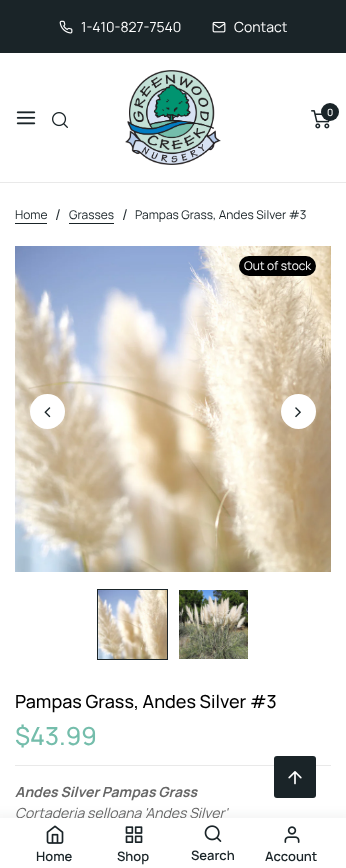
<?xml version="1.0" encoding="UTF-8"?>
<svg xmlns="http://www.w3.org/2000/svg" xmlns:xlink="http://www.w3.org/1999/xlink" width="346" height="868">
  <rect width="100%" height="100%" fill="#ffffff" />
  <rect width="346" height="53" fill="#1a2428" />
  <image x="59" y="20" width="14" height="14" xlink:href="image1.png" />
  <image x="212" y="21" width="14" height="12" xlink:href="image2.png" />
  <rect y="182" width="346" height="1" fill="#e9e9e9" />
  <image x="16" y="111" width="20" height="14" xlink:href="image3.png" />
  <image x="52" y="112" width="16" height="16" xlink:href="image4.png" />
  <image x="125" y="70" width="96" height="95" xlink:href="image5.png" />
  <image x="311" y="110" width="19" height="19" xlink:href="image6.png" />
  <circle cx="330" cy="112" r="9" fill="#1a2428" />
  <rect x="-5" y="814" width="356" height="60" fill="#1a2428" fill-opacity="0.05" filter="blur(5px)" />
  <rect x="15" y="223" width="32" height="1" fill="#1a2428" />
  <rect x="69" y="223" width="45" height="1" fill="#1a2428" />
  <image x="15" y="246" width="316" height="326" xlink:href="image11.png" />
  <circle cx="47.5" cy="411.5" r="17.5" fill="#ffffff" />
  <image x="44" y="407" width="7" height="11" xlink:href="image12.png" />
  <circle cx="298.5" cy="411.5" r="17.5" fill="#ffffff" />
  <image x="295" y="407" width="6" height="11" xlink:href="image13.png" />
  <rect x="239" y="256" width="77" height="20" rx="10" fill="#000000" />
  <rect x="97.5" y="589.5" width="70" height="70" fill="none" stroke="#1a2428" />
  <image x="98" y="590" width="69" height="69" xlink:href="image14.png" />
  <image x="179" y="590" width="69" height="69" xlink:href="image15.png" />
  <rect x="15" y="765" width="316" height="1" fill="#e9e9e9" />
  <rect x="274" y="756" width="42" height="42" rx="3" fill="#1a2428" />
  <image x="288" y="771" width="14" height="14" xlink:href="image16.png" />
  <text x="81" y="32" style="font-family: Manrope; font-size: 14px; fill: #ffffff">1-410-827-7540</text>
  <text x="234" y="32" style="font-family: Manrope; font-size: 14px; fill: #ffffff">Contact</text>
  <text x="327" y="116" style="font-family: Manrope; font-size: 10px; font-weight: 500; fill: #ffffff">0</text>
  <text x="15" y="219" style="font-family: Manrope; font-size: 12px; fill: #1a2428">Home</text>
  <text x="55" y="220" style="font-family: Manrope; font-size: 15px; fill: #1a2428">/</text>
  <text x="69" y="219" style="font-family: Manrope; font-size: 12px; fill: #1a2428">Grasses</text>
  <text x="122" y="220" style="font-family: Manrope; font-size: 15px; fill: #1a2428">/</text>
  <text x="135" y="219" style="font-family: Manrope; font-size: 12px; fill: #1a2428">Pampas Grass, Andes Silver #3</text>
  <text x="244" y="270" style="font-family: Manrope; font-size: 12px; fill: #ffffff">Out of stock</text>
  <text x="15" y="708" style="font-family: Manrope; font-size: 18px; font-weight: 500; fill: #000000">Pampas Grass, Andes Silver #3</text>
  <text x="15" y="745" style="font-family: Manrope; font-size: 25px; font-weight: 500; fill: #74bdab">$43.99</text>
  <text x="15" y="797" style="font-family: Manrope; font-size: 14px; font-weight: bold; font-style: italic; fill: #666666">Andes Silver Pampas Grass</text>
  <text x="15" y="818" style="font-family: Manrope; font-size: 14px; font-style: italic; fill: #666666">Cortaderia selloana 'Andes Silver'</text>
  <rect y="818" width="346" height="50" fill="#ffffff" />
  <text x="191" y="860" style="font-family: Manrope; font-size: 13px; font-weight: 600; fill: #1a2428">Search</text>
  <image x="204" y="825" width="18" height="17" xlink:href="image9.png" />
  <text x="265" y="861" style="font-family: Manrope; font-size: 13px; font-weight: 600; fill: #1a2428">Account</text>
  <image x="284" y="826" width="16" height="17" xlink:href="image10.png" />
  <text x="117" y="861" style="font-family: Manrope; font-size: 13px; font-weight: 600; fill: #1a2428">Shop</text>
  <image x="125" y="826" width="18" height="17" xlink:href="image8.png" />
  <text x="36" y="861" style="font-family: Manrope; font-size: 13px; font-weight: 600; fill: #1a2428">Home</text>
  <image x="46" y="825" width="18" height="19" xlink:href="image7.png" />
</svg>
